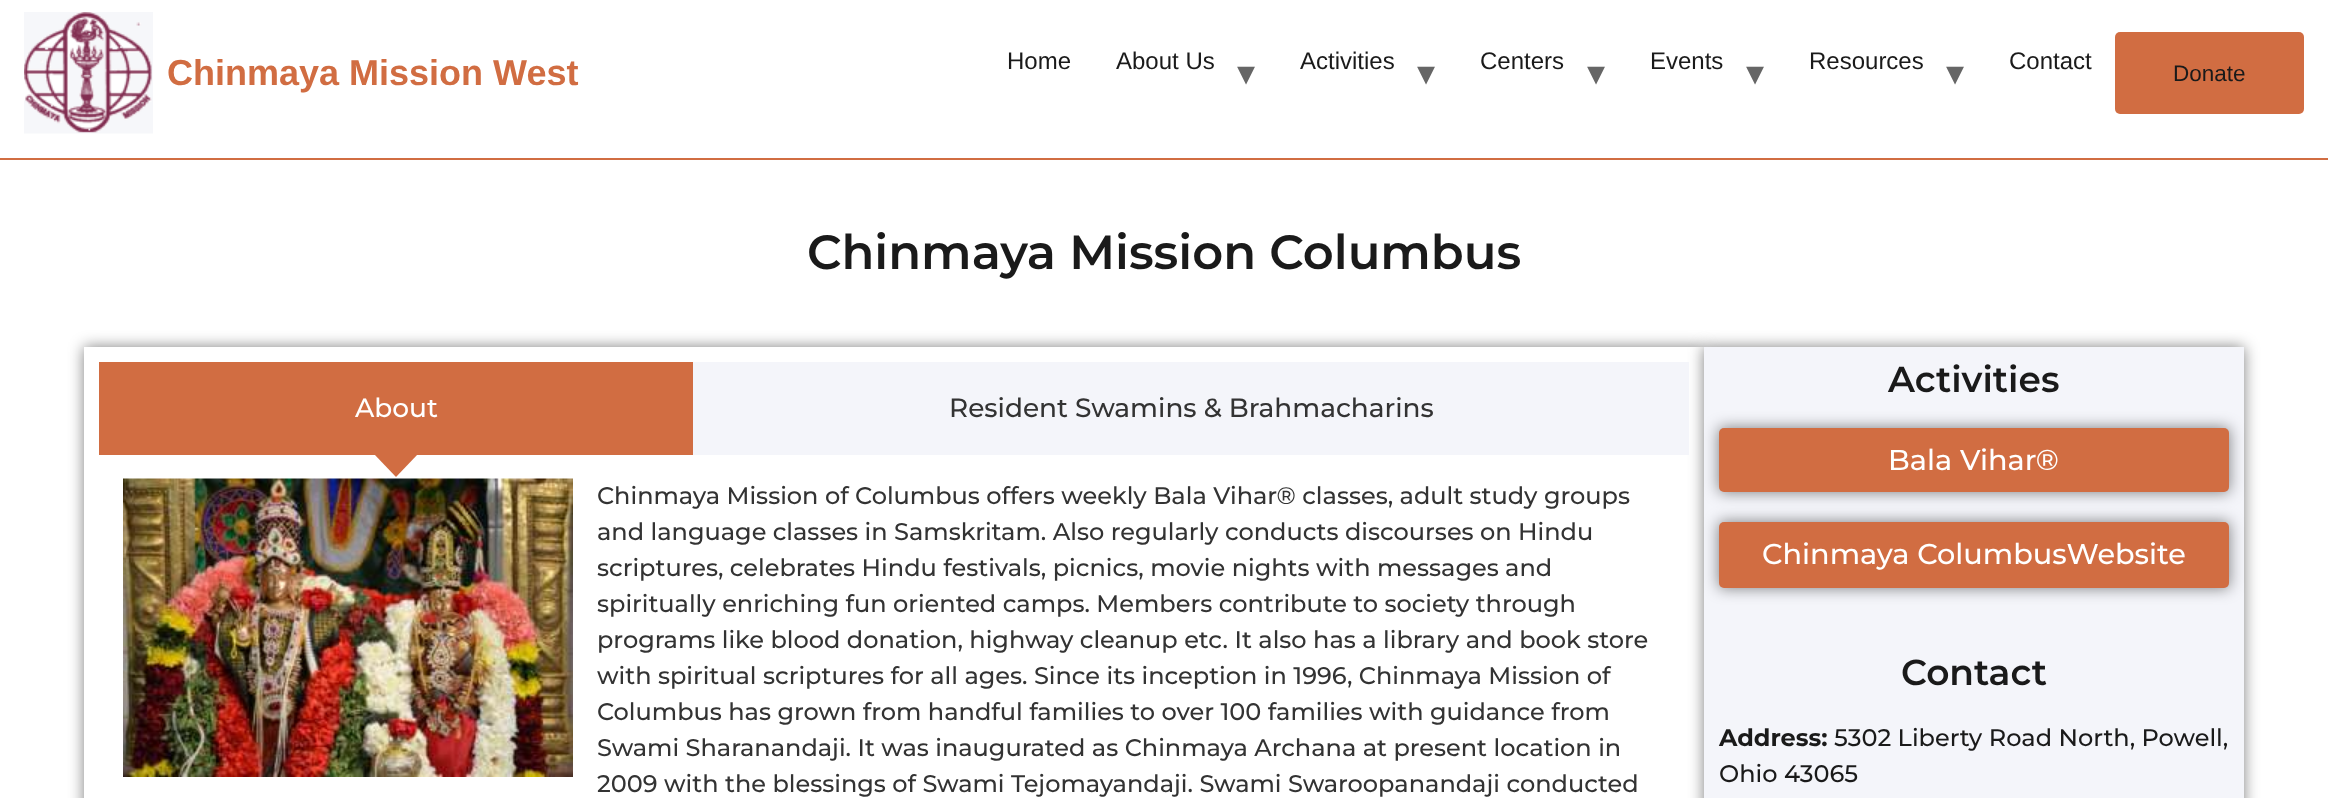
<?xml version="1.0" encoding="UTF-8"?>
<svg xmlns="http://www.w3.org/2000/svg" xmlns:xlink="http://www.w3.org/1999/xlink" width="2328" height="798">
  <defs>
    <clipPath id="clip1"><path d="M 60 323 h 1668 v 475 h -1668 z m 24 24 h 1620 v 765 h -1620 z" clip-rule="evenodd" /></clipPath>
  </defs>
  <rect width="100%" height="100%" fill="#ffffff" />
  <rect y="158" width="2328" height="2" fill="#d16d42" />
  <image x="24" y="12" width="129" height="122" xlink:href="image1.png" />
  <rect x="2115" y="32" width="189" height="82" rx="5" fill="#d16d42" />
  <g clip-path="url(#clip1)">
    <rect x="84" y="347" width="1620" height="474" fill="#000000" fill-opacity="0.5" filter="blur(7.5px)" />
  </g>
  <rect x="99" y="362" width="594" height="93" fill="#d16d42" />
  <path d="M 374 454 h 44 l -22 23 z" fill="#d16d42" />
  <rect x="1704" y="347" width="540" height="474" fill="#000000" fill-opacity="0.5" filter="blur(7.5px)" />
  <rect x="693" y="362" width="996" height="93" fill="#f4f5fa" />
  <image x="123" y="478" width="450" height="299" xlink:href="image2.png" />
  <rect x="1704" y="347" width="540" height="451" fill="#f4f5fa" />
  <rect x="1719" y="428" width="510" height="64" fill="#000000" fill-opacity="0.5" filter="blur(7.5px)" />
  <rect x="1719" y="428" width="510" height="64" rx="5" fill="#d16d42" />
  <rect x="1719" y="522" width="510" height="66" fill="#000000" fill-opacity="0.5" filter="blur(7.5px)" />
  <rect x="1719" y="522" width="510" height="66" rx="5" fill="#d16d42" />
  <text x="167" y="85" style="font-family: Liberation Sans; font-size: 36px; font-weight: bold; fill: #d16d42">Chinmaya Mission West</text>
  <text x="1007" y="69" style="font-family: Liberation Sans; font-size: 24px; fill: #1a1a1a">Home</text>
  <text x="1116" y="69" style="font-family: Liberation Sans; font-size: 24px; fill: #1a1a1a">About Us</text>
  <text x="1237" y="85" style="font-family: DejaVu Sans; font-size: 36px; fill: #666666">▾</text>
  <text x="1300" y="69" style="font-family: Liberation Sans; font-size: 24px; fill: #1a1a1a">Activities</text>
  <text x="1417" y="85" style="font-family: DejaVu Sans; font-size: 36px; fill: #666666">▾</text>
  <text x="1480" y="69" style="font-family: Liberation Sans; font-size: 24px; fill: #1a1a1a">Centers</text>
  <text x="1587" y="85" style="font-family: DejaVu Sans; font-size: 36px; fill: #666666">▾</text>
  <text x="1650" y="69" style="font-family: Liberation Sans; font-size: 24px; fill: #1a1a1a">Events</text>
  <text x="1746" y="85" style="font-family: DejaVu Sans; font-size: 36px; fill: #666666">▾</text>
  <text x="1809" y="69" style="font-family: Liberation Sans; font-size: 24px; fill: #1a1a1a">Resources</text>
  <text x="1946" y="85" style="font-family: DejaVu Sans; font-size: 36px; fill: #666666">▾</text>
  <text x="2009" y="69" style="font-family: Liberation Sans; font-size: 24px; fill: #1a1a1a">Contact</text>
  <text x="2173" y="81" style="font-family: Liberation Sans; font-size: 22.5px; fill: #1a1a1a">Donate</text>
  <text x="807" y="269" style="font-family: Montserrat; font-size: 48px; font-weight: 600; fill: #1a1a1a">Chinmaya Mission Columbus</text>
  <text x="355" y="417" style="font-family: Montserrat; font-size: 26.4px; font-weight: 500; fill: #ffffff">About</text>
  <text x="949" y="417" style="font-family: Montserrat; font-size: 26.4px; font-weight: 500; fill: #333333">Resident Swamins &amp; Brahmacharins</text>
  <text x="597" y="504" style="font-family: Montserrat; font-size: 24px; font-weight: 500; fill: #333333">Chinmaya Mission of Columbus offers weekly Bala Vihar® classes, adult study groups</text>
  <text x="597" y="540" style="font-family: Montserrat; font-size: 24px; font-weight: 500; fill: #333333">and language classes in Samskritam. Also regularly conducts discourses on Hindu</text>
  <text x="597" y="576" style="font-family: Montserrat; font-size: 24px; font-weight: 500; fill: #333333">scriptures, celebrates Hindu festivals, picnics, movie nights with messages and</text>
  <text x="597" y="612" style="font-family: Montserrat; font-size: 24px; font-weight: 500; fill: #333333">spiritually enriching fun oriented camps. Members contribute to society through</text>
  <text x="597" y="648" style="font-family: Montserrat; font-size: 24px; font-weight: 500; fill: #333333">programs like blood donation, highway cleanup etc. It also has a library and book store</text>
  <text x="597" y="684" style="font-family: Montserrat; font-size: 24px; font-weight: 500; fill: #333333">with spiritual scriptures for all ages. Since its inception in 1996, Chinmaya Mission of</text>
  <text x="597" y="720" style="font-family: Montserrat; font-size: 24px; font-weight: 500; fill: #333333">Columbus has grown from handful families to over 100 families with guidance from</text>
  <text x="597" y="756" style="font-family: Montserrat; font-size: 24px; font-weight: 500; fill: #333333">Swami Sharanandaji. It was inaugurated as Chinmaya Archana at present location in</text>
  <text x="597" y="792" style="font-family: Montserrat; font-size: 24px; font-weight: 500; fill: #333333">2009 with the blessings of Swami Tejomayandaji. Swami Swaroopanandaji conducted</text>
  <text x="1888" y="392" style="font-family: Montserrat; font-size: 36px; font-weight: 600; fill: #1a1a1a">Activities</text>
  <text x="1888" y="470" style="font-family: Montserrat; font-size: 28.75px; font-weight: 500; fill: #ffffff">Bala Vihar®</text>
  <text x="1762" y="564" style="font-family: Montserrat; font-size: 28.75px; font-weight: 500; fill: #ffffff">Chinmaya ColumbusWebsite</text>
  <text x="1901" y="685" style="font-family: Montserrat; font-size: 36px; font-weight: 600; fill: #1a1a1a">Contact</text>
  <text x="1719" y="746" style="font-family: Montserrat; font-size: 24px; font-weight: bold; fill: #1a1a1a">Address:</text>
  <text x="1834" y="746" style="font-family: Montserrat; font-size: 24px; font-weight: 500; fill: #1a1a1a">5302 Liberty Road North, Powell,</text>
  <text x="1719" y="782" style="font-family: Montserrat; font-size: 24px; font-weight: 500; fill: #1a1a1a">Ohio 43065</text>
</svg>
